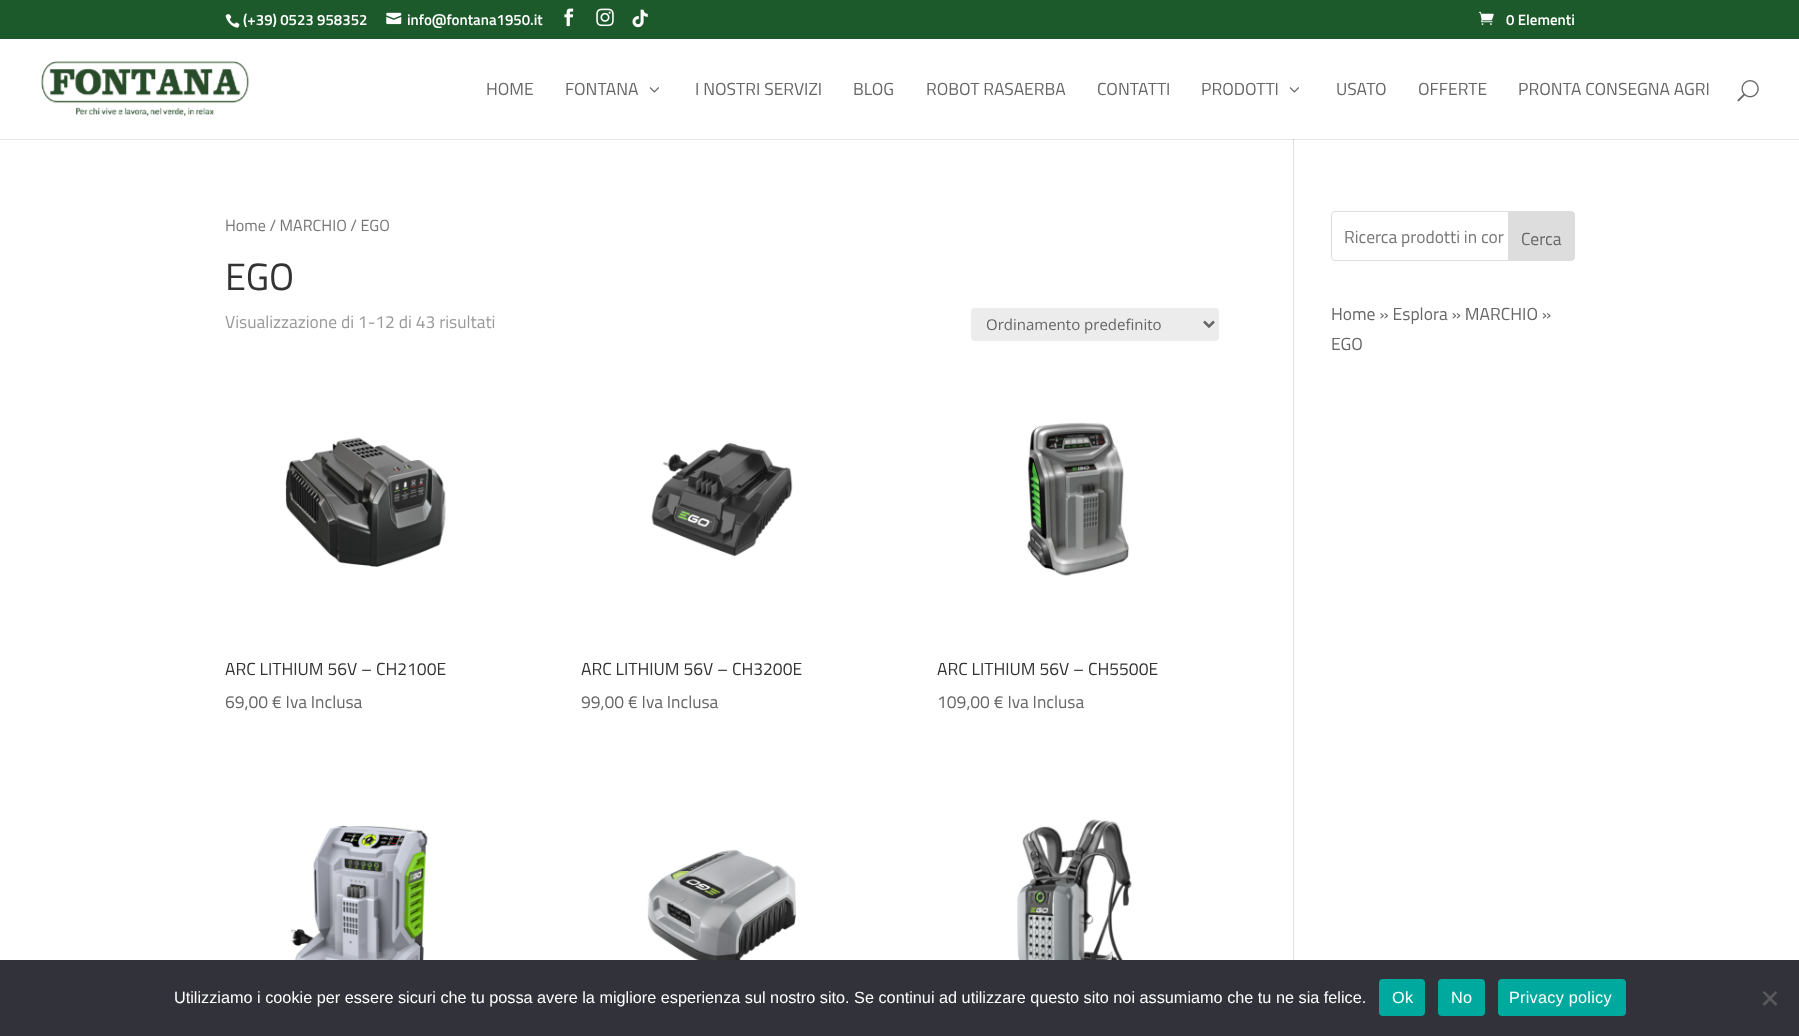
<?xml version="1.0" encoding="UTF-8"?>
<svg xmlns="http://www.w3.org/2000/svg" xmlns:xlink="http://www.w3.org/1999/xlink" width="1799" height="1036">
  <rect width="100%" height="100%" fill="#ffffff" />
  <rect y="139" width="1799" height="1" fill="#e6e6e6" />
  <rect width="1799" height="39" fill="#1c592b" />
  <image x="225" y="14" width="15" height="14" xlink:href="image1.png" />
  <image x="386" y="12" width="16" height="13" xlink:href="image2.png" />
  <image x="564" y="8" width="10" height="19" xlink:href="image3.png" />
  <image x="596" y="8" width="18" height="19" xlink:href="image4.png" />
  <image x="632" y="9" width="16" height="19" xlink:href="image5.png" />
  <image x="1478" y="11" width="16" height="14" xlink:href="image6.png" />
  <image x="41" y="61" width="208" height="56" xlink:href="image7.png" />
  <image x="649" y="87" width="10" height="6" xlink:href="image8.png" />
  <image x="1289" y="87" width="10" height="6" xlink:href="image8.png" />
  <image x="1737" y="80" width="22" height="22" xlink:href="image9.png" />
  <rect x="1293" y="139" width="1" height="821" fill="#e2e2e2" />
  <rect x="1293" y="139" width="1" height="1" fill="#cbcbcb" />
  <rect x="971" y="308" width="248" height="33" rx="4" fill="#ececec" />
  <path d="M 1204 321.5 l 5 5 l 5 -5" fill="none" stroke="#666666" stroke-width="2.5" />
  <image x="285" y="437" width="161" height="130" xlink:href="image10.png" />
  <image x="651" y="442" width="142" height="115" xlink:href="image11.png" />
  <image x="1027" y="422" width="102" height="154" xlink:href="image12.png" />
  <image x="290" y="825" width="138" height="135" xlink:href="image13.png" />
  <image x="647" y="849" width="150" height="111" xlink:href="image14.png" />
  <image x="1017" y="819" width="123" height="141" xlink:href="image15.png" />
  <rect x="1331.5" y="211.5" width="243" height="49" rx="3.5" fill="none" stroke="#dddddd" />
  <path d="M 1508.5 211.5 h 62.5 c 2 0 3.5 1.5 3.5 3.5 v 42 c 0 2 -1.5 3.5 -3.5 3.5 h -62.5 z" fill="#dddddd" stroke="#dddddd" />
  <rect y="960" width="1799" height="76" fill="#32323a" />
  <rect x="1379" y="979" width="46" height="37" rx="4" fill="#00a99d" />
  <rect x="1438" y="979" width="47" height="37" rx="4" fill="#00a99d" />
  <rect x="1498" y="979" width="128" height="37" rx="4" fill="#00a99d" />
  <path d="M 1775.5 991 l 2 1.5 l -13 13.5 l -2 -2 z" fill="#59595d" />
  <path d="M 1762.5 992.5 l 2 -1.5 l 13 13 l -2 2 z" fill="#59595d" />
  <text x="243" y="25" style="font-family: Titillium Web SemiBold; font-size: 15px; font-weight: 600; fill: #ffffff">(+39) 0523 958352</text>
  <text x="407" y="25" style="font-family: Titillium Web SemiBold; font-size: 15px; font-weight: 600; fill: #ffffff">info@fontana1950.it</text>
  <text x="1506" y="25" style="font-family: Titillium Web SemiBold; font-size: 15px; font-weight: 600; fill: #ffffff">0 Elementi</text>
  <text x="486" y="95" style="font-family: Titillium Web; font-size: 17.5px; fill: #666666">HOME</text>
  <text x="565" y="95" style="font-family: Titillium Web; font-size: 17.5px; fill: #666666">FONTANA</text>
  <text x="695" y="95" style="font-family: Titillium Web; font-size: 17.5px; fill: #666666">I NOSTRI SERVIZI</text>
  <text x="853" y="95" style="font-family: Titillium Web; font-size: 17.5px; fill: #666666">BLOG</text>
  <text x="926" y="95" style="font-family: Titillium Web; font-size: 17.5px; fill: #666666">ROBOT RASAERBA</text>
  <text x="1097" y="95" style="font-family: Titillium Web; font-size: 17.5px; fill: #666666">CONTATTI</text>
  <text x="1201" y="95" style="font-family: Titillium Web; font-size: 17.5px; fill: #666666">PRODOTTI</text>
  <text x="1336" y="95" style="font-family: Titillium Web; font-size: 17.5px; fill: #666666">USATO</text>
  <text x="1418" y="95" style="font-family: Titillium Web; font-size: 17.5px; fill: #666666">OFFERTE</text>
  <text x="1518" y="95" style="font-family: Titillium Web; font-size: 17.5px; fill: #666666">PRONTA CONSEGNA AGRI</text>
  <text x="225" y="231" style="font-family: Titillium Web; font-size: 16.1px; fill: #767676">Home / MARCHIO / EGO</text>
  <text x="225" y="290" style="font-family: Titillium Web; font-size: 38px; fill: #333333">EGO</text>
  <text x="225" y="328" style="font-family: Titillium Web; font-size: 17.5px; fill: #999999">Visualizzazione di 1-12 di 43 risultati</text>
  <text x="986" y="330" style="font-family: Open Sans; font-size: 15px; fill: #666666">Ordinamento predefinito</text>
  <text x="225" y="675" style="font-family: Titillium Web; font-size: 17.5px; fill: #333333">ARC LITHIUM 56V – CH2100E</text>
  <text x="225" y="708" style="font-family: Titillium Web; font-size: 17.5px; fill: #666666">69,00 € Iva Inclusa</text>
  <text x="581" y="675" style="font-family: Titillium Web; font-size: 17.5px; fill: #333333">ARC LITHIUM 56V – CH3200E</text>
  <text x="581" y="708" style="font-family: Titillium Web; font-size: 17.5px; fill: #666666">99,00 € Iva Inclusa</text>
  <text x="937" y="675" style="font-family: Titillium Web; font-size: 17.5px; fill: #333333">ARC LITHIUM 56V – CH5500E</text>
  <text x="937" y="708" style="font-family: Titillium Web; font-size: 17.5px; fill: #666666">109,00 € Iva Inclusa</text>
  <text x="1344" y="243" style="font-family: Titillium Web; font-size: 17.5px; fill: #767676">Ricerca prodotti in cor</text>
  <text x="1521" y="245" style="font-family: Titillium Web; font-size: 17.5px; fill: #666666">Cerca</text>
  <text x="1331" y="320" style="font-family: Titillium Web; font-size: 17.5px; fill: #666666">Home » Esplora » MARCHIO »</text>
  <text x="1331" y="350" style="font-family: Titillium Web; font-size: 17.5px; fill: #666666">EGO</text>
  <text x="174" y="1003" style="font-family: Liberation Sans; font-size: 16.25px; fill: #ffffff">Utilizziamo i cookie per essere sicuri che tu possa avere la migliore esperienza sul nostro sito. Se continui ad utilizzare questo sito noi assumiamo che tu ne sia felice.</text>
  <text x="1392" y="1003" style="font-family: Liberation Sans; font-size: 16.25px; letter-spacing: 0.25px; fill: #ffffff">Ok</text>
  <text x="1451" y="1003" style="font-family: Liberation Sans; font-size: 16.25px; letter-spacing: 0.25px; fill: #ffffff">No</text>
  <text x="1509" y="1003" style="font-family: Liberation Sans; font-size: 16.25px; letter-spacing: 0.25px; fill: #ffffff">Privacy policy</text>
</svg>
